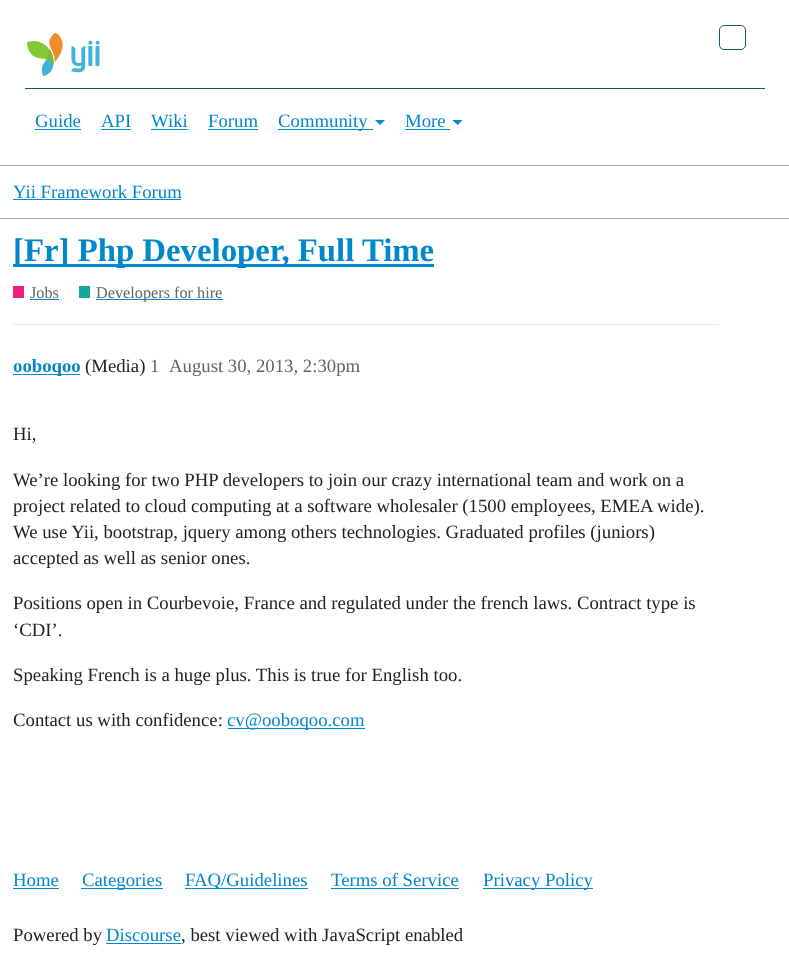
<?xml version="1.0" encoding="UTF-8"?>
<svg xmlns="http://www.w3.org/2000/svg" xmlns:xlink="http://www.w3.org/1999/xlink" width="789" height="966">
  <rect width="100%" height="100%" fill="#ffffff" />
  <rect y="165" width="789" height="1" fill="#afafaf" />
  <image x="27" y="33" width="73" height="43" xlink:href="image1.png" />
  <rect x="719.5" y="25.5" width="26" height="24" rx="4.5" fill="none" stroke="#195872" />
  <rect x="25" y="88" width="740" height="1" fill="#18516a" />
  <rect x="35" y="129" width="46" height="1" fill="#0088cc" />
  <rect x="101" y="129" width="30" height="1" fill="#0088cc" />
  <rect x="151" y="129" width="37" height="1" fill="#0088cc" />
  <rect x="208" y="129" width="50" height="1" fill="#0088cc" />
  <rect x="278" y="129" width="95" height="1" fill="#0088cc" />
  <path d="M 375 120 h 10 l -5 5 z" fill="#0088cc" />
  <rect x="405" y="129" width="45" height="1" fill="#0088cc" />
  <path d="M 452.5 120 h 10 l -5 5 z" fill="#0088cc" />
  <rect y="218" width="789" height="1" fill="#afafaf" />
  <rect x="13" y="199" width="168" height="1" fill="#0088cc" />
  <rect x="13" y="264" width="421" height="3" fill="#0088cc" />
  <rect x="13" y="286" width="11" height="12" fill="#ed207b" />
  <rect x="30" y="299" width="29" height="1" fill="#0088cc" />
  <rect x="79" y="286" width="11" height="12" fill="#12a89d" />
  <rect x="96" y="299" width="127" height="1" fill="#0088cc" />
  <rect x="13" y="324" width="706" height="1" fill="#e9e9e9" />
  <rect x="13" y="374" width="67" height="1" fill="#0088cc" />
  <rect x="228" y="728" width="137" height="1" fill="#0088cc" />
  <rect x="13" y="888" width="46" height="1" fill="#0088cc" />
  <rect x="81" y="888" width="82" height="1" fill="#0088cc" />
  <rect x="185" y="888" width="123" height="1" fill="#0088cc" />
  <rect x="331" y="888" width="128" height="1" fill="#0088cc" />
  <rect x="483" y="888" width="110" height="1" fill="#0088cc" />
  <rect x="106" y="943" width="75" height="1" fill="#0088cc" />
  <text x="35" y="127" style="font-family: Liberation Serif; font-size: 18.75px; fill: #0088cc">Guide</text>
  <text x="101" y="127" style="font-family: Liberation Serif; font-size: 18.75px; fill: #0088cc">API</text>
  <text x="151" y="127" style="font-family: Liberation Serif; font-size: 18.75px; fill: #0088cc">Wiki</text>
  <text x="208" y="127" style="font-family: Liberation Serif; font-size: 18.75px; fill: #0088cc">Forum</text>
  <text x="278" y="127" style="font-family: Liberation Serif; font-size: 18.75px; fill: #0088cc">Community</text>
  <text x="405" y="127" style="font-family: Liberation Serif; font-size: 18.75px; fill: #0088cc">More</text>
  <text x="13" y="198" style="font-family: Liberation Serif; font-size: 18.75px; fill: #0088cc">Yii Framework Forum</text>
  <text x="13" y="261" style="font-family: Liberation Serif; font-size: 32.8px; font-weight: bold; fill: #0088cc">[Fr] Php Developer, Full Time</text>
  <text x="30" y="298" style="font-family: Liberation Serif; font-size: 16.25px; fill: #646464">Jobs</text>
  <text x="96" y="298" style="font-family: Liberation Serif; font-size: 16.25px; fill: #646464">Developers for hire</text>
  <text x="13" y="372" style="font-family: Liberation Serif; font-size: 18.75px; font-weight: bold; fill: #0088cc">ooboqoo</text>
  <text x="85" y="372" style="font-family: Liberation Serif; font-size: 18.75px; fill: #222222">(Media)</text>
  <text x="150" y="372" style="font-family: Liberation Serif; font-size: 18.75px; fill: #646464">1</text>
  <text x="169" y="372" style="font-family: Liberation Serif; font-size: 18.75px; fill: #646464">August 30, 2013, 2:30pm</text>
  <text x="13" y="440" style="font-family: Liberation Serif; font-size: 18.75px; fill: #222222">Hi,</text>
  <text x="13" y="486" style="font-family: Liberation Serif; font-size: 18.75px; fill: #222222">We’re looking for two PHP developers to join our crazy international team and work on a</text>
  <text x="13" y="512" style="font-family: Liberation Serif; font-size: 18.75px; fill: #222222">project related to cloud computing at a software wholesaler (1500 employees, EMEA wide).</text>
  <text x="13" y="538" style="font-family: Liberation Serif; font-size: 18.75px; fill: #222222">We use Yii, bootstrap, jquery among others technologies. Graduated profiles (juniors)</text>
  <text x="13" y="564" style="font-family: Liberation Serif; font-size: 18.75px; fill: #222222">accepted as well as senior ones.</text>
  <text x="13" y="609" style="font-family: Liberation Serif; font-size: 18.75px; fill: #222222">Positions open in Courbevoie, France and regulated under the french laws. Contract type is</text>
  <text x="13" y="636" style="font-family: Liberation Serif; font-size: 18.75px; fill: #222222">‘CDI’.</text>
  <text x="13" y="681" style="font-family: Liberation Serif; font-size: 18.75px; fill: #222222">Speaking French is a huge plus. This is true for English too.</text>
  <text x="13" y="726" style="font-family: Liberation Serif; font-size: 18.75px; fill: #222222">Contact us with confidence:</text>
  <text x="227" y="726" style="font-family: Liberation Serif; font-size: 18.75px; fill: #0088cc">cv@ooboqoo.com</text>
  <text x="13" y="886" style="font-family: Liberation Serif; font-size: 18.75px; fill: #0088cc">Home</text>
  <text x="82" y="886" style="font-family: Liberation Serif; font-size: 18.75px; fill: #0088cc">Categories</text>
  <text x="185" y="886" style="font-family: Liberation Serif; font-size: 18.75px; fill: #0088cc">FAQ/Guidelines</text>
  <text x="331" y="886" style="font-family: Liberation Serif; font-size: 18.75px; fill: #0088cc">Terms of Service</text>
  <text x="483" y="886" style="font-family: Liberation Serif; font-size: 18.75px; fill: #0088cc">Privacy Policy</text>
  <text x="13" y="941" style="font-family: Liberation Serif; font-size: 18.75px; fill: #222222">Powered by</text>
  <text x="106" y="941" style="font-family: Liberation Serif; font-size: 18.75px; fill: #0088cc">Discourse</text>
  <text x="181" y="941" style="font-family: Liberation Serif; font-size: 18.75px; fill: #222222">, best viewed with JavaScript enabled</text>
</svg>
